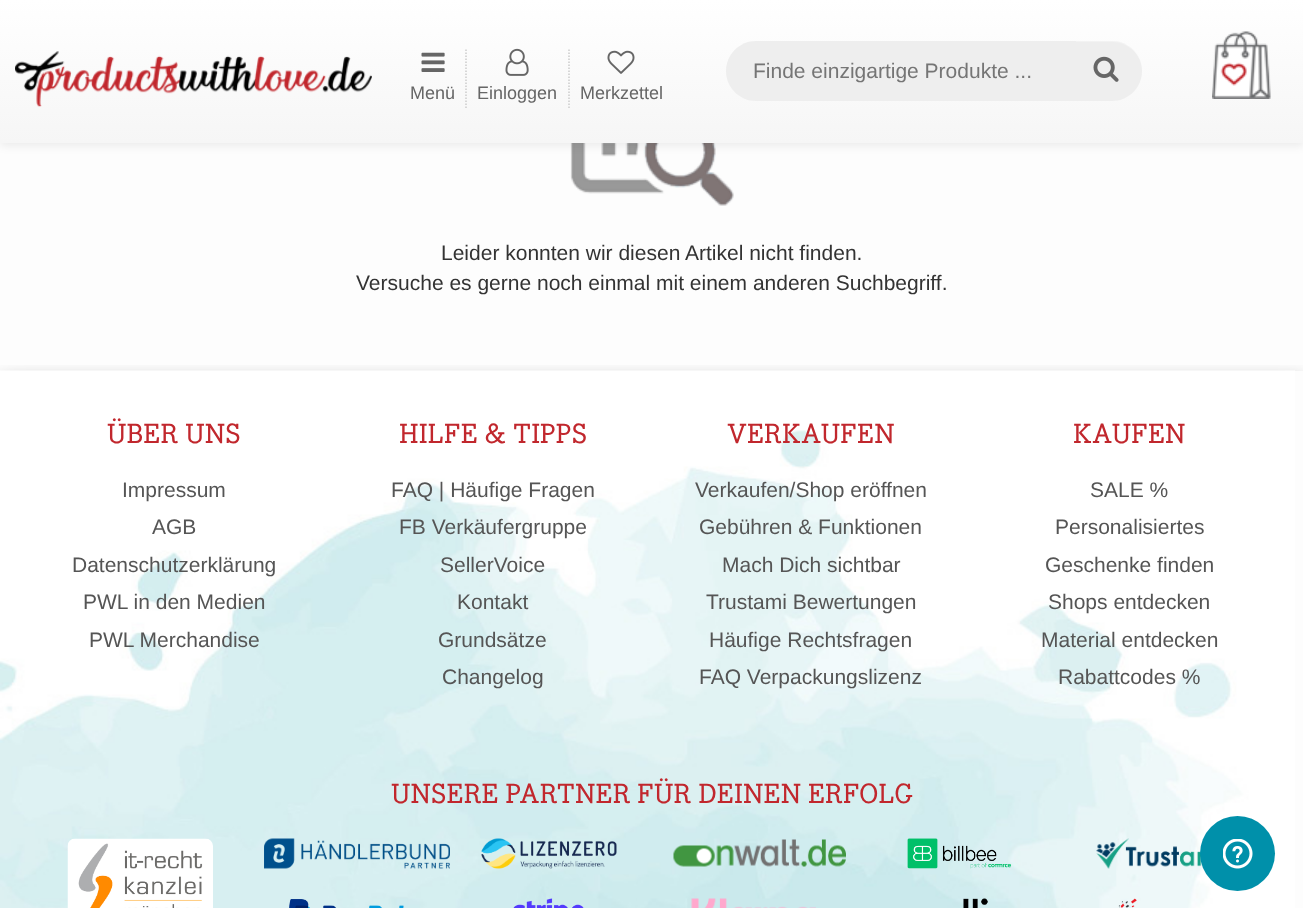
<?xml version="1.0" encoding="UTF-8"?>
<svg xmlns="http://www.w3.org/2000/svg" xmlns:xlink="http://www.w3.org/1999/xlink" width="1303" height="908">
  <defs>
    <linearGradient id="g1" gradientUnits="userSpaceOnUse" x1="652" y1="143" x2="652" y2="0"><stop offset="0" stop-color="#f6f6f6" /><stop offset="1" stop-color="#ffffff" /></linearGradient>
    <clipPath id="clip1"><rect x="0" y="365" width="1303" height="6" /></clipPath>
  </defs>
  <rect width="100%" height="100%" fill="#fdfdfd" />
  <image x="570" y="143" width="164" height="63" xlink:href="image7.png" />
  <rect y="3" width="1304" height="143" fill="#000000" fill-opacity="0.07" filter="blur(4px)" />
  <rect width="1303" height="143" fill="url(#g1)" />
  <image x="15" y="51" width="357" height="56" xlink:href="image1.png" />
  <path d="M 756 41 h 335 v 60 h -335 c -16.5 0 -30 -13.5 -30 -30 c 0 -16.5 13.5 -30 30 -30 z" fill="#eeeeee" />
  <path d="M 1076 41 h 36 c 16.5 0 30 13.5 30 30 c 0 16.5 -13.5 30 -30 30 h -36 z" fill="#eeeeee" />
  <path d="M 1076 42 h 36 c 16 0 30 13 30 29 c 0 -17 -13 -30 -30 -30 h -36 z" fill="#ffffff" fill-opacity="0.3" />
  <image x="1093" y="56" width="26" height="26" xlink:href="image2.png" />
  <image x="1212" y="31" width="59" height="68" xlink:href="image3.png" />
  <image x="421" y="52" width="24" height="20" xlink:href="image4.png" />
  <path d="M 466 49.5 v 58.5" fill="none" stroke="#cccccc" stroke-width="1.5" stroke-dasharray="1.5 1.5" />
  <image x="505" y="48" width="24" height="28" xlink:href="image5.png" />
  <path d="M 569 49.5 v 58.5" fill="none" stroke="#cccccc" stroke-width="1.5" stroke-dasharray="1.5 1.5" />
  <image x="607" y="50" width="28" height="24" xlink:href="image6.png" />
  <g clip-path="url(#clip1)">
    <rect y="386" width="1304" height="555" fill="#000000" fill-opacity="0.75" filter="blur(11px)" />
  </g>
  <image x="0" y="370" width="1295" height="538" xlink:href="image8.png" />
  <image x="67" y="838" width="146" height="70" xlink:href="image9.png" />
  <image x="264" y="838" width="186" height="31" xlink:href="image10.png" />
  <image x="289" y="899" width="115" height="9" xlink:href="image11.png" />
  <image x="481" y="838" width="136" height="31" xlink:href="image12.png" />
  <image x="513" y="898" width="71" height="10" xlink:href="image13.png" />
  <image x="673" y="839" width="173" height="28" xlink:href="image14.png" />
  <image x="691" y="898" width="125" height="10" xlink:href="image15.png" />
  <image x="907" y="838" width="104" height="31" xlink:href="image16.png" />
  <image x="963" y="898" width="25" height="10" xlink:href="image17.png" />
  <image x="1096" y="838" width="106" height="31" xlink:href="image18.png" />
  <image x="1118" y="898" width="19" height="10" xlink:href="image19.png" />
  <circle cx="1237.5" cy="853.5" r="37.5" fill="#0090aa" />
  <image x="1223" y="839" width="30" height="30" xlink:href="image20.png" />
  <text x="753" y="78" style="font-family: Liberation Sans; font-size: 21px; fill: #757575">Finde einzigartige Produkte ...</text>
  <text x="410" y="99" style="font-family: Liberation Sans; font-size: 18px; fill: #666666">Menü</text>
  <text x="477" y="99" style="font-family: Liberation Sans; font-size: 18px; fill: #666666">Einloggen</text>
  <text x="580" y="99" style="font-family: Liberation Sans; font-size: 18px; fill: #666666">Merkzettel</text>
  <text x="441" y="260" style="font-family: Liberation Sans; font-size: 21px; fill: #333333">Leider konnten wir diesen Artikel nicht finden.</text>
  <text x="356" y="290" style="font-family: Liberation Sans; font-size: 21px; fill: #333333">Versuche es gerne noch einmal mit einem anderen Suchbegriff.</text>
  <text x="107" y="443" style="font-family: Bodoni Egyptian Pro; font-size: 27px; font-weight: 500; fill: #c1272d">ÜBER UNS</text>
  <text x="122" y="497" style="font-family: Liberation Sans; font-size: 21px; fill: #555555">Impressum</text>
  <text x="152" y="534" style="font-family: Liberation Sans; font-size: 21px; fill: #555555">AGB</text>
  <text x="72" y="572" style="font-family: Liberation Sans; font-size: 21px; fill: #555555">Datenschutzerklärung</text>
  <text x="83" y="609" style="font-family: Liberation Sans; font-size: 21px; fill: #555555">PWL in den Medien</text>
  <text x="89" y="647" style="font-family: Liberation Sans; font-size: 21px; fill: #555555">PWL Merchandise</text>
  <text x="399" y="443" style="font-family: Bodoni Egyptian Pro; font-size: 27px; font-weight: 500; fill: #c1272d">HILFE &amp; TIPPS</text>
  <text x="391" y="497" style="font-family: Liberation Sans; font-size: 21px; fill: #555555">FAQ | Häufige Fragen</text>
  <text x="399" y="534" style="font-family: Liberation Sans; font-size: 21px; fill: #555555">FB Verkäufergruppe</text>
  <text x="440" y="572" style="font-family: Liberation Sans; font-size: 21px; fill: #555555">SellerVoice</text>
  <text x="457" y="609" style="font-family: Liberation Sans; font-size: 21px; fill: #555555">Kontakt</text>
  <text x="438" y="647" style="font-family: Liberation Sans; font-size: 21px; fill: #555555">Grundsätze</text>
  <text x="442" y="684" style="font-family: Liberation Sans; font-size: 21px; fill: #555555">Changelog</text>
  <text x="727" y="443" style="font-family: Bodoni Egyptian Pro; font-size: 27px; font-weight: 500; fill: #c1272d">VERKAUFEN</text>
  <text x="695" y="497" style="font-family: Liberation Sans; font-size: 21px; fill: #555555">Verkaufen/Shop eröffnen</text>
  <text x="699" y="534" style="font-family: Liberation Sans; font-size: 21px; fill: #555555">Gebühren &amp; Funktionen</text>
  <text x="722" y="572" style="font-family: Liberation Sans; font-size: 21px; fill: #555555">Mach Dich sichtbar</text>
  <text x="706" y="609" style="font-family: Liberation Sans; font-size: 21px; fill: #555555">Trustami Bewertungen</text>
  <text x="709" y="647" style="font-family: Liberation Sans; font-size: 21px; fill: #555555">Häufige Rechtsfragen</text>
  <text x="699" y="684" style="font-family: Liberation Sans; font-size: 21px; fill: #555555">FAQ Verpackungslizenz</text>
  <text x="1073" y="443" style="font-family: Bodoni Egyptian Pro; font-size: 27px; font-weight: 500; fill: #c1272d">KAUFEN</text>
  <text x="1090" y="497" style="font-family: Liberation Sans; font-size: 21px; fill: #555555">SALE %</text>
  <text x="1055" y="534" style="font-family: Liberation Sans; font-size: 21px; fill: #555555">Personalisiertes</text>
  <text x="1045" y="572" style="font-family: Liberation Sans; font-size: 21px; fill: #555555">Geschenke finden</text>
  <text x="1048" y="609" style="font-family: Liberation Sans; font-size: 21px; fill: #555555">Shops entdecken</text>
  <text x="1041" y="647" style="font-family: Liberation Sans; font-size: 21px; fill: #555555">Material entdecken</text>
  <text x="1058" y="684" style="font-family: Liberation Sans; font-size: 21px; fill: #555555">Rabattcodes %</text>
  <text x="391" y="803" style="font-family: Bodoni Egyptian Pro; font-size: 27px; font-weight: 500; fill: #c1272d">UNSERE PARTNER FÜR DEINEN ERFOLG</text>
</svg>
